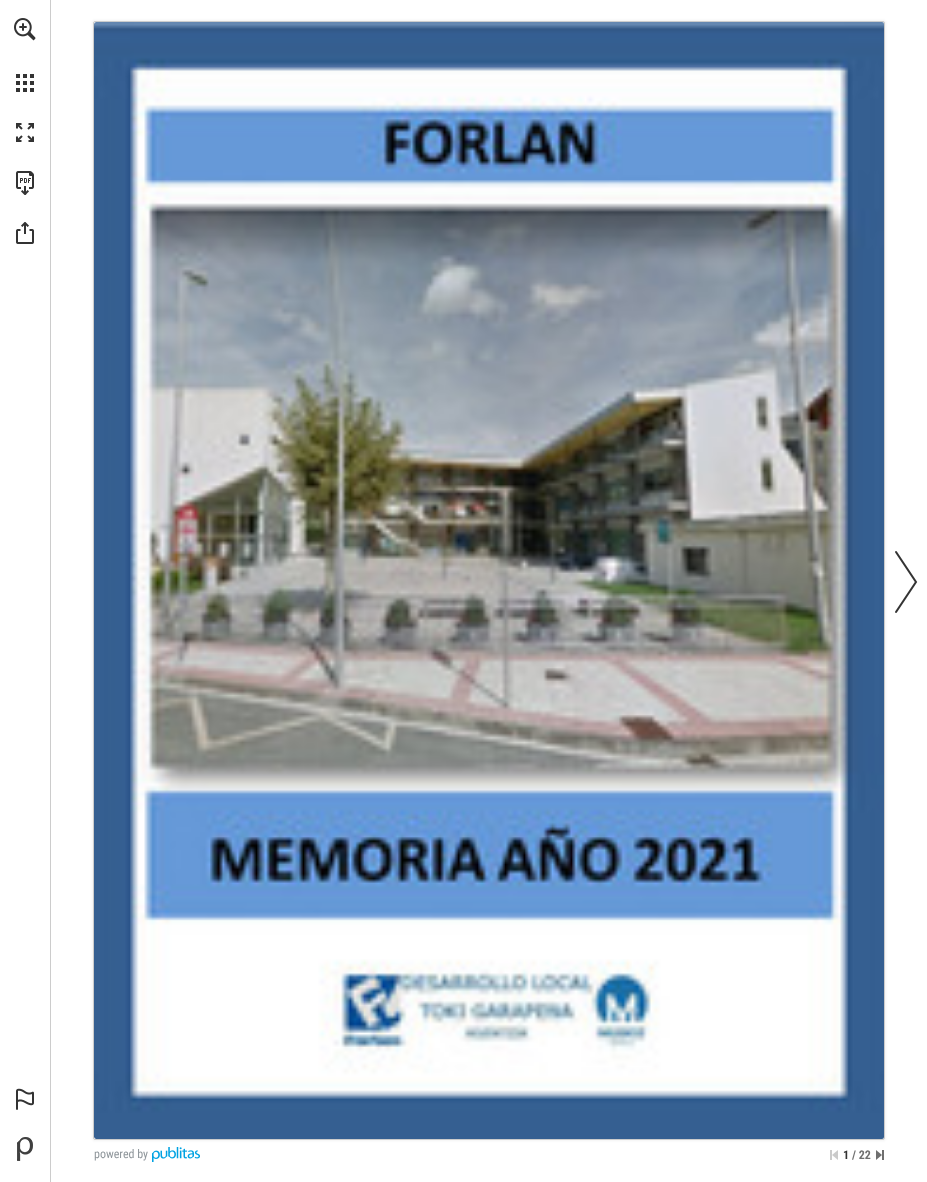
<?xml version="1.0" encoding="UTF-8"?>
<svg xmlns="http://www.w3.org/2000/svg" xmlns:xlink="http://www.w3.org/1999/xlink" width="927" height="1182">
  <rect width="100%" height="100%" fill="#ffffff" />
  <rect x="1" width="50" height="1182" fill="#000000" fill-opacity="0.2" filter="blur(0.5px)" />
  <rect width="50" height="1182" fill="#ffffff" />
  <image x="14" y="18" width="22" height="23" xlink:href="image1.png" />
  <image x="16" y="74" width="18" height="18" xlink:href="image2.png" />
  <image x="16" y="123" width="18" height="19" xlink:href="image3.png" />
  <image x="16" y="171" width="18" height="24" xlink:href="image4.png" />
  <image x="16" y="222" width="18" height="22" xlink:href="image5.png" />
  <image x="16" y="1088" width="18" height="22" xlink:href="image6.png" />
  <image x="17" y="1137" width="16" height="24" xlink:href="image7.png" />
  <rect x="92" y="20" width="794" height="1121" rx="3" fill="#121212" fill-opacity="0.05" filter="blur(1px)" />
  <rect x="93.5" y="21.5" width="791" height="1118" rx="1.5" fill="#ffffff" stroke="#cccccc" />
  <image x="94" y="22" width="790" height="1117" xlink:href="image8.png" />
  <image x="152" y="1147" width="48" height="15" xlink:href="image9.png" />
  <image x="895" y="551" width="23" height="62" xlink:href="image10.png" />
  <image x="830" y="1150" width="8" height="10" xlink:href="image11.png" />
  <image x="876" y="1150" width="8" height="10" xlink:href="image12.png" />
  <text x="94" y="1158" style="font-family: Roboto Condensed; font-size: 12px; fill: #8f969b">powered by</text>
  <text x="843" y="1159" style="font-family: Roboto Condensed; font-size: 12px; font-weight: bold; fill: #333333">1</text>
  <text x="852" y="1159" style="font-family: Roboto Condensed; font-size: 12px; font-weight: bold; fill: #707070">/ 22</text>
</svg>
